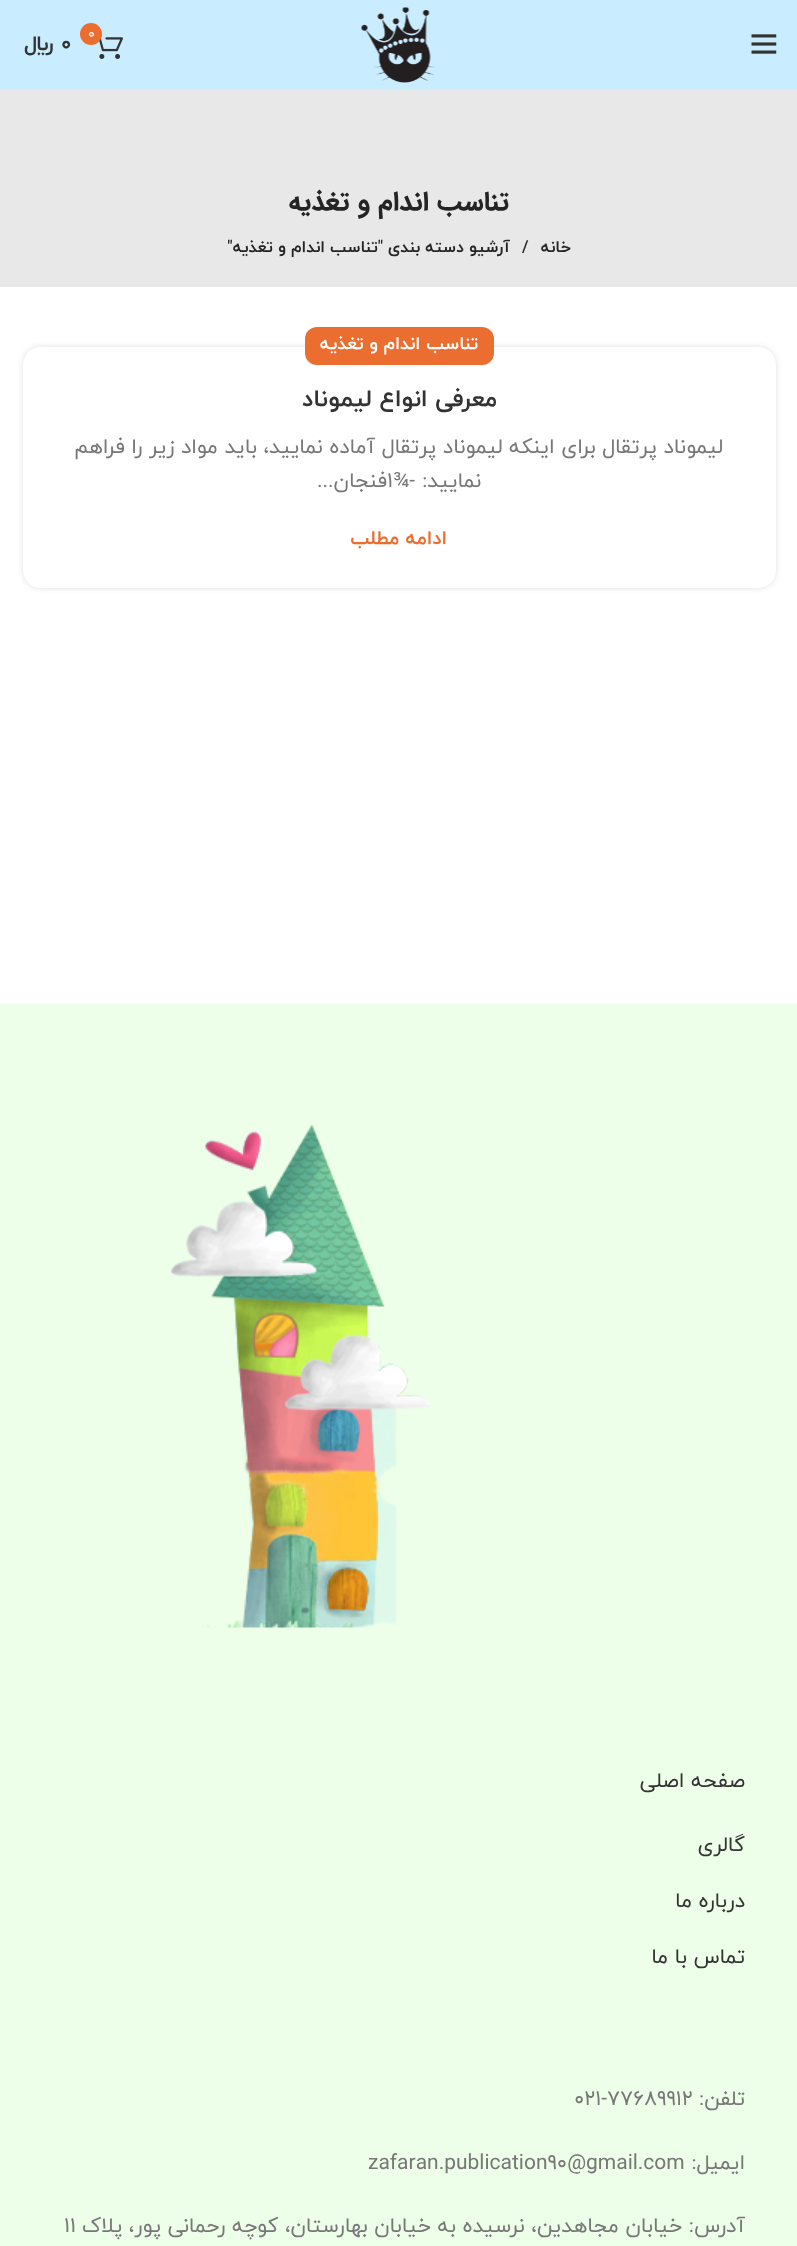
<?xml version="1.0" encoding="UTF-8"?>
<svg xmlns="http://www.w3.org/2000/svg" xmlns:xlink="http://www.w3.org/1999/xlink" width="797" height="2246">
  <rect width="100%" height="100%" fill="#ffffff" />
  <rect width="797" height="90" fill="#caecff" />
  <image x="751" y="34" width="26" height="20" xlink:href="image1.png" />
  <image x="361" y="7" width="74" height="76" xlink:href="image2.png" />
  <image x="99" y="37" width="24" height="22" xlink:href="image3.png" />
  <circle cx="91" cy="34" r="11" fill="#eb6d2f" />
  <rect y="90" width="797" height="197" fill="#e8e8e8" />
  <rect x="23" y="347" width="753" height="241" rx="18" fill="#000000" fill-opacity="0.12" filter="blur(3px)" />
  <rect x="23" y="347" width="753" height="241" rx="18" fill="#ffffff" />
  <rect x="305" y="327" width="189" height="38" rx="12" fill="#eb6d2f" />
  <rect y="1004" width="797" height="1242" fill="#edffe8" />
  <image x="170" y="1124" width="261" height="504" xlink:href="image4.png" />
  <text x="88" y="38" style="font-family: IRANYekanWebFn; font-size: 14px; fill: #ffffff">0</text>
  <text x="61" y="50" style="font-family: IRANYekanWebFn; font-size: 21px; font-weight: bold; fill: #333333">۰</text>
  <text x="54" y="50" style="font-family: IRANYekanWebFn; font-size: 21px; font-weight: bold; direction: rtl; fill: #333333">﷼</text>
  <text x="509" y="210" style="font-family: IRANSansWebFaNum; font-size: 27px; font-weight: bold; direction: rtl; fill: #242424">تناسب اندام و تغذیه</text>
  <text x="571" y="252" style="font-family: IRANYekanWebFn; font-size: 16.5px; font-weight: bold; direction: rtl; fill: #242424">خانه</text>
  <text x="522" y="252" style="font-family: IRANYekanWebFn; font-size: 16.5px; font-weight: bold; fill: #242424">/</text>
  <text x="510" y="252" style="font-family: IRANYekanWebFn; font-size: 16.5px; font-weight: bold; direction: rtl; fill: #242424">آرشیو دسته بندی</text>
  <text x="383" y="252" style="font-family: IRANYekanWebFn; font-size: 16.5px; font-weight: bold; direction: rtl; fill: #242424">"تناسب اندام و تغذیه"</text>
  <text x="478" y="349" style="font-family: IRANYekanWebFn; font-size: 18px; font-weight: bold; direction: rtl; fill: #ffffff">تناسب اندام و تغذیه</text>
  <text x="497" y="406" style="font-family: IRANYekanWebFn; font-size: 24px; font-weight: bold; direction: rtl; fill: #333333">معرفی انواع لیموناد</text>
  <text x="723" y="453" style="font-family: IRANYekanWebFn; font-size: 21px; direction: rtl; fill: #777777">لیموناد پرتقال برای اینکه لیموناد پرتقال آماده نمایید، باید مواد زیر را فراهم</text>
  <text x="481" y="487" style="font-family: IRANYekanWebFn; font-size: 21px; direction: rtl; fill: #777777">نمایید:</text>
  <text x="387" y="487" style="font-family: IRANYekanWebFn; font-size: 21px; fill: #777777">۱¾-</text>
  <text x="387" y="487" style="font-family: IRANYekanWebFn; font-size: 21px; direction: rtl; fill: #777777">فنجان...</text>
  <text x="447" y="544" style="font-family: IRANYekanWebFn; font-size: 19.5px; font-weight: bold; direction: rtl; fill: #eb6d2f">ادامه مطلب</text>
  <text x="745" y="1787" style="font-family: IRANYekanWebFn; font-size: 21px; direction: rtl; fill: #333333">صفحه اصلی</text>
  <text x="745" y="1851" style="font-family: IRANYekanWebFn; font-size: 21px; direction: rtl; fill: #333333">گالری</text>
  <text x="745" y="1907" style="font-family: IRANYekanWebFn; font-size: 21px; direction: rtl; fill: #333333">درباره ما</text>
  <text x="745" y="1963" style="font-family: IRANYekanWebFn; font-size: 21px; direction: rtl; fill: #333333">تماس با ما</text>
  <text x="745" y="2105" style="font-family: IRANYekanWebFn; font-size: 21px; direction: rtl; fill: #777777">تلفن:</text>
  <text x="574" y="2105" style="font-family: IRANYekanWebFn; font-size: 21px; fill: #777777">021-77689912</text>
  <text x="745" y="2169" style="font-family: IRANYekanWebFn; font-size: 21px; direction: rtl; fill: #777777">ایمیل:</text>
  <text x="368" y="2169" style="font-family: IRANYekanWebFn; font-size: 21px; fill: #777777">zafaran.publication90@gmail.com</text>
  <text x="745" y="2232" style="font-family: IRANYekanWebFn; font-size: 21px; direction: rtl; fill: #777777">آدرس: خیابان مجاهدین، نرسیده به خیابان بهارستان، کوچه رحمانی پور، پلاک</text>
  <text x="64" y="2232" style="font-family: IRANYekanWebFn; font-size: 21px; fill: #777777">11</text>
</svg>
